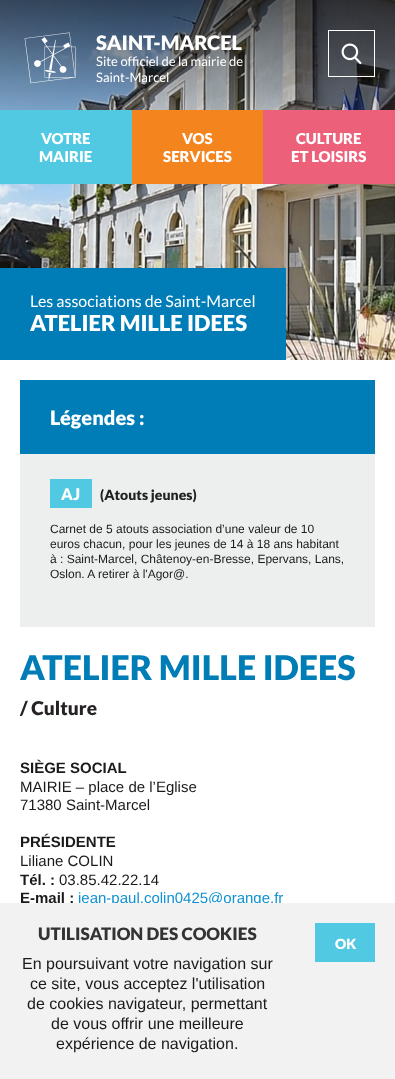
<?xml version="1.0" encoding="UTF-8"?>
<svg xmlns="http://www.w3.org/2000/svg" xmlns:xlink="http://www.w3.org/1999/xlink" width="395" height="1079">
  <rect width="100%" height="100%" fill="#ffffff" />
  <image x="0" y="0" width="395" height="360" xlink:href="image3.png" />
  <image x="24" y="32" width="52" height="52" xlink:href="image1.png" />
  <rect x="328.5" y="30.5" width="46" height="46" fill="none" stroke="#ffffff" />
  <image x="341" y="43" width="21" height="22" xlink:href="image2.png" />
  <rect y="110" width="132" height="74" fill="#51c9e2" />
  <rect x="132" y="110" width="131" height="74" fill="#f4841e" />
  <rect x="263" y="110" width="132" height="74" fill="#ed6079" />
  <rect y="268" width="286" height="92" fill="#007db6" />
  <rect x="20" y="454" width="355" height="173" fill="#edefef" />
  <rect x="20" y="380" width="355" height="74" fill="#007db6" />
  <rect x="50" y="479" width="42" height="29" fill="#51c9e2" />
  <text x="96" y="50" style="font-family: Lato; font-size: 20px; font-weight: 900; fill: #ffffff">SAINT-MARCEL</text>
  <text x="96" y="66" style="font-family: Lato; font-size: 13px; fill: #ffffff">Site officiel de la mairie de</text>
  <text x="96" y="82" style="font-family: Lato; font-size: 13px; fill: #ffffff">Saint-Marcel</text>
  <text x="41" y="144" style="font-family: Lato; font-size: 15px; font-weight: 900; fill: #ffffff">VOTRE</text>
  <text x="39" y="162" style="font-family: Lato; font-size: 15px; font-weight: 900; fill: #ffffff">MAIRIE</text>
  <text x="182" y="144" style="font-family: Lato; font-size: 15px; font-weight: 900; fill: #ffffff">VOS</text>
  <text x="163" y="162" style="font-family: Lato; font-size: 15px; font-weight: 900; fill: #ffffff">SERVICES</text>
  <text x="296" y="144" style="font-family: Lato; font-size: 15px; font-weight: 900; fill: #ffffff">CULTURE</text>
  <text x="291" y="162" style="font-family: Lato; font-size: 15px; font-weight: 900; fill: #ffffff">ET LOISIRS</text>
  <text x="30" y="307" style="font-family: Lato; font-size: 16px; fill: #ffffff">Les associations de Saint-Marcel</text>
  <text x="30" y="331" style="font-family: Lato; font-size: 22px; font-weight: 900; fill: #ffffff">ATELIER MILLE IDEES</text>
  <text x="50" y="425" style="font-family: Lato; font-size: 20px; font-weight: 900; fill: #ffffff">Légendes :</text>
  <text x="61" y="500" style="font-family: Lato; font-size: 16px; font-weight: 900; fill: #ffffff">AJ</text>
  <text x="100" y="500" style="font-family: Lato; font-size: 14px; font-weight: 900; fill: #212121">(Atouts jeunes)</text>
  <text x="50" y="533" style="font-family: Liberation Sans; font-size: 12px; fill: #1a1a1a">Carnet de 5 atouts association d’une valeur de 10</text>
  <text x="50" y="548" style="font-family: Liberation Sans; font-size: 12px; fill: #1a1a1a">euros chacun, pour les jeunes de 14 à 18 ans habitant</text>
  <text x="50" y="563" style="font-family: Liberation Sans; font-size: 12px; fill: #1a1a1a">à : Saint-Marcel, Châtenoy-en-Bresse, Epervans, Lans,</text>
  <text x="50" y="578" style="font-family: Liberation Sans; font-size: 12px; fill: #1a1a1a">Oslon. A retirer à l'Agor@.</text>
  <text x="20" y="680" style="font-family: Lato; font-size: 34px; font-weight: 900; fill: #007db6">ATELIER MILLE IDEES</text>
  <text x="20" y="715" style="font-family: Lato; font-size: 19px; font-weight: 900; fill: #272222">/ Culture</text>
  <text x="20" y="773" style="font-family: Liberation Sans; font-size: 15px; font-weight: bold; fill: #1a1a1a">SIÈGE SOCIAL</text>
  <text x="20" y="792" style="font-family: Liberation Sans; font-size: 15px; fill: #1a1a1a">MAIRIE – place de l’Eglise</text>
  <text x="20" y="810" style="font-family: Liberation Sans; font-size: 15px; fill: #1a1a1a">71380 Saint-Marcel</text>
  <text x="20" y="847" style="font-family: Liberation Sans; font-size: 15px; font-weight: bold; fill: #1a1a1a">PRÉSIDENTE</text>
  <text x="20" y="866" style="font-family: Liberation Sans; font-size: 15px; fill: #1a1a1a">Liliane COLIN</text>
  <text x="20" y="885" style="font-family: Liberation Sans; font-size: 15px; font-weight: bold; fill: #1a1a1a">Tél. :</text>
  <text x="59" y="885" style="font-family: Liberation Sans; font-size: 15px; fill: #1a1a1a">03.85.42.22.14</text>
  <text x="20" y="903" style="font-family: Liberation Sans; font-size: 15px; font-weight: bold; fill: #1a1a1a">E-mail :</text>
  <text x="78" y="903" style="font-family: Liberation Sans; font-size: 15px; fill: #0e90d2">jean-paul.colin0425@orange.fr</text>
  <rect y="903" width="395" height="176" fill="#f2f2f2" />
  <text x="38" y="940" style="font-family: Lato; font-size: 17.1px; font-weight: 900; fill: #333333">UTILISATION DES COOKIES</text>
  <rect x="315" y="923" width="60" height="39" fill="#51c9e2" />
  <text x="335" y="949" style="font-family: Lato; font-size: 14px; font-weight: 900; fill: #ffffff">OK</text>
  <text x="22" y="969" style="font-family: Liberation Sans; font-size: 16px; fill: #1a1a1a">En poursuivant votre navigation sur</text>
  <text x="30" y="989" style="font-family: Liberation Sans; font-size: 16px; fill: #1a1a1a">ce site, vous acceptez l'utilisation</text>
  <text x="27" y="1009" style="font-family: Liberation Sans; font-size: 16px; fill: #1a1a1a">de cookies navigateur, permettant</text>
  <text x="51" y="1029" style="font-family: Liberation Sans; font-size: 16px; fill: #1a1a1a">de vous offrir une meilleure</text>
  <text x="56" y="1049" style="font-family: Liberation Sans; font-size: 16px; fill: #1a1a1a">expérience de navigation.</text>
</svg>
